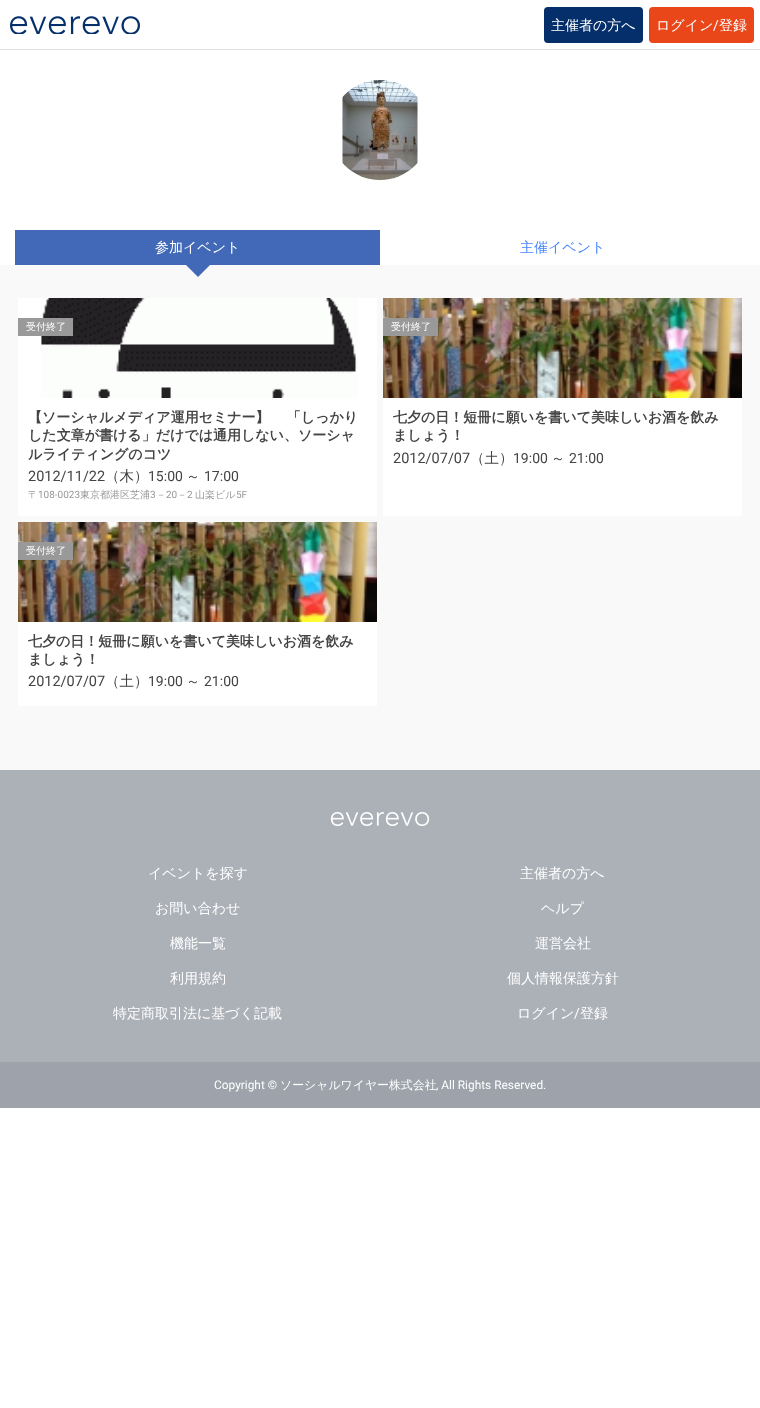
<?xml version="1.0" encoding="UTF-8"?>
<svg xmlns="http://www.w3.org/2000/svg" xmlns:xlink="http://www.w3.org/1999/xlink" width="760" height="1408">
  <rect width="100%" height="100%" fill="#ffffff" />
  <rect y="49" width="760" height="1" fill="#e1e1e1" />
  <image x="10" y="16" width="130" height="18" xlink:href="image1.png" />
  <rect x="544" y="7" width="99" height="36" rx="4" fill="#052f6b" />
  <rect x="649" y="7" width="105" height="36" rx="4" fill="#e94619" />
  <image x="342" y="80" width="76" height="100" xlink:href="image2.png" />
  <rect y="265" width="760" height="505" fill="#f9f9f9" />
  <rect x="15" y="230" width="365" height="35" fill="#4169b8" />
  <path d="M 186 265 h 24 l -12 12 z" fill="#4169b8" />
  <rect x="18" y="298" width="359" height="218" fill="#ffffff" />
  <image x="41" y="298" width="317" height="100" xlink:href="image3.png" />
  <rect x="18" y="318" width="55" height="18" fill="#999999" />
  <rect x="383" y="398" width="359" height="118" fill="#ffffff" />
  <image x="383" y="298" width="359" height="100" xlink:href="image4.png" />
  <rect x="383" y="318" width="55" height="18" fill="#999999" />
  <rect x="18" y="622" width="359" height="84" fill="#ffffff" />
  <image x="18" y="522" width="359" height="100" xlink:href="image4.png" />
  <rect x="18" y="542" width="55" height="18" fill="#999999" />
  <rect y="770" width="760" height="292" fill="#acb0b7" />
  <image x="330" y="812" width="100" height="14" xlink:href="image5.png" />
  <rect y="1062" width="760" height="46" fill="#9ea3ab" />
  <text x="551" y="30" style="font-family: WenQuanYi Zen Hei; font-size: 14px; font-weight: 500; fill: #ffffff">主催者の方へ</text>
  <text x="656" y="30" style="font-family: WenQuanYi Zen Hei; font-size: 14px; font-weight: 500; fill: #ffffff">ログイン</text>
  <text x="713" y="30" style="font-family: Roboto; font-size: 14px; fill: #ffffff">/</text>
  <text x="719" y="30" style="font-family: WenQuanYi Zen Hei; font-size: 14px; font-weight: 500; fill: #ffffff">登録</text>
  <text x="155" y="252" style="font-family: WenQuanYi Zen Hei; font-size: 14px; font-weight: 500; fill: #ffffff">参加イベント</text>
  <text x="520" y="252" style="font-family: WenQuanYi Zen Hei; font-size: 14px; font-weight: 500; fill: #4686ff">主催イベント</text>
  <text x="26" y="330" style="font-family: WenQuanYi Zen Hei; font-size: 10px; font-weight: 500; fill: #ffffff">受付終了</text>
  <text x="28" y="422" word-spacing="-1" style="font-family: WenQuanYi Zen Hei; font-size: 14px; font-weight: bold; fill: #444444">【ソーシャルメディア運用セミナー】 　「しっかり</text>
  <text x="28" y="440" style="font-family: WenQuanYi Zen Hei; font-size: 14px; font-weight: bold; fill: #444444">した文章が書ける」だけでは通用しない、ソーシャ</text>
  <text x="28" y="459" style="font-family: WenQuanYi Zen Hei; font-size: 14px; font-weight: bold; fill: #444444">ルライティングのコツ</text>
  <text x="28" y="481" style="font-family: Roboto; font-size: 14.5px; fill: #444444">2012/11/22</text>
  <text x="105" y="481" style="font-family: WenQuanYi Zen Hei; font-size: 14.5px; font-weight: 500; fill: #444444">（木）</text>
  <text x="148" y="481" style="font-family: Roboto; font-size: 14px; fill: #444444">15:00</text>
  <text x="186" y="481" style="font-family: WenQuanYi Zen Hei; font-size: 14px; font-weight: 500; fill: #444444">～</text>
  <text x="204" y="481" style="font-family: Roboto; font-size: 14px; fill: #444444">17:00</text>
  <text x="28" y="498" style="font-family: WenQuanYi Zen Hei; font-size: 10px; font-weight: 500; fill: #999999">〒</text>
  <text x="38" y="498" style="font-family: Roboto; font-size: 10px; fill: #999999">108-0023</text>
  <text x="80" y="498" style="font-family: WenQuanYi Zen Hei; font-size: 10px; font-weight: 500; fill: #999999">東京都港区芝浦</text>
  <text x="150" y="498" style="font-family: Roboto; font-size: 10px; fill: #999999">3</text>
  <text x="156" y="498" style="font-family: WenQuanYi Zen Hei; font-size: 10px; font-weight: 500; fill: #999999">－</text>
  <text x="166" y="498" style="font-family: Roboto; font-size: 10px; fill: #999999">20</text>
  <text x="177" y="498" style="font-family: WenQuanYi Zen Hei; font-size: 10px; font-weight: 500; fill: #999999">－</text>
  <text x="187" y="498" style="font-family: Roboto; font-size: 10px; fill: #999999">2</text>
  <text x="195" y="498" style="font-family: WenQuanYi Zen Hei; font-size: 10px; font-weight: 500; fill: #999999">山楽ビル</text>
  <text x="236" y="498" style="font-family: Roboto; font-size: 10px; fill: #999999">5F</text>
  <text x="391" y="330" style="font-family: WenQuanYi Zen Hei; font-size: 10px; font-weight: 500; fill: #ffffff">受付終了</text>
  <text x="393" y="422" style="font-family: WenQuanYi Zen Hei; font-size: 14px; font-weight: bold; fill: #444444">七夕の日！短冊に願いを書いて美味しいお酒を飲み</text>
  <text x="393" y="440" style="font-family: WenQuanYi Zen Hei; font-size: 14px; font-weight: bold; fill: #444444">ましょう！</text>
  <text x="393" y="463" style="font-family: Roboto; font-size: 14.5px; fill: #444444">2012/07/07</text>
  <text x="470" y="463" style="font-family: WenQuanYi Zen Hei; font-size: 14.5px; font-weight: 500; fill: #444444">（土）</text>
  <text x="513" y="463" style="font-family: Roboto; font-size: 14px; fill: #444444">19:00</text>
  <text x="551" y="463" style="font-family: WenQuanYi Zen Hei; font-size: 14px; font-weight: 500; fill: #444444">～</text>
  <text x="569" y="463" style="font-family: Roboto; font-size: 14px; fill: #444444">21:00</text>
  <text x="26" y="554" style="font-family: WenQuanYi Zen Hei; font-size: 10px; font-weight: 500; fill: #ffffff">受付終了</text>
  <text x="28" y="646" style="font-family: WenQuanYi Zen Hei; font-size: 14px; font-weight: bold; fill: #444444">七夕の日！短冊に願いを書いて美味しいお酒を飲み</text>
  <text x="28" y="664" style="font-family: WenQuanYi Zen Hei; font-size: 14px; font-weight: bold; fill: #444444">ましょう！</text>
  <text x="28" y="686" style="font-family: Roboto; font-size: 14.5px; fill: #444444">2012/07/07</text>
  <text x="105" y="686" style="font-family: WenQuanYi Zen Hei; font-size: 14.5px; font-weight: 500; fill: #444444">（土）</text>
  <text x="148" y="686" style="font-family: Roboto; font-size: 14px; fill: #444444">19:00</text>
  <text x="186" y="686" style="font-family: WenQuanYi Zen Hei; font-size: 14px; font-weight: 500; fill: #444444">～</text>
  <text x="204" y="686" style="font-family: Roboto; font-size: 14px; fill: #444444">21:00</text>
  <text x="148" y="878" style="font-family: WenQuanYi Zen Hei; font-size: 14px; font-weight: 500; fill: #ffffff">イベントを探す</text>
  <text x="520" y="878" style="font-family: WenQuanYi Zen Hei; font-size: 14px; font-weight: 500; fill: #ffffff">主催者の方へ</text>
  <text x="155" y="913" style="font-family: WenQuanYi Zen Hei; font-size: 14px; font-weight: 500; fill: #ffffff">お問い合わせ</text>
  <text x="541" y="913" style="font-family: WenQuanYi Zen Hei; font-size: 14px; font-weight: 500; fill: #ffffff">ヘルプ</text>
  <text x="170" y="948" style="font-family: WenQuanYi Zen Hei; font-size: 14px; font-weight: 500; fill: #ffffff">機能一覧</text>
  <text x="535" y="948" style="font-family: WenQuanYi Zen Hei; font-size: 14px; font-weight: 500; fill: #ffffff">運営会社</text>
  <text x="170" y="983" style="font-family: WenQuanYi Zen Hei; font-size: 14px; font-weight: 500; fill: #ffffff">利用規約</text>
  <text x="507" y="983" style="font-family: WenQuanYi Zen Hei; font-size: 14px; font-weight: 500; fill: #ffffff">個人情報保護方針</text>
  <text x="113" y="1018" style="font-family: WenQuanYi Zen Hei; font-size: 14px; font-weight: 500; fill: #ffffff">特定商取引法に基づく記載</text>
  <text x="517" y="1018" style="font-family: WenQuanYi Zen Hei; font-size: 14px; font-weight: 500; fill: #ffffff">ログイン</text>
  <text x="574" y="1018" style="font-family: Roboto; font-size: 14px; fill: #ffffff">/</text>
  <text x="580" y="1018" style="font-family: WenQuanYi Zen Hei; font-size: 14px; font-weight: 500; fill: #ffffff">登録</text>
  <text x="214" y="1089" style="font-family: Roboto; font-size: 11.9px; fill: #ffffff">Copyright ©</text>
  <text x="280" y="1089" style="font-family: WenQuanYi Zen Hei; font-size: 11.9px; font-weight: 500; fill: #ffffff">ソーシャルワイヤー株式会社</text>
  <text x="436" y="1089" style="font-family: Roboto; font-size: 11.9px; fill: #ffffff">, All Rights Reserved.</text>
</svg>
